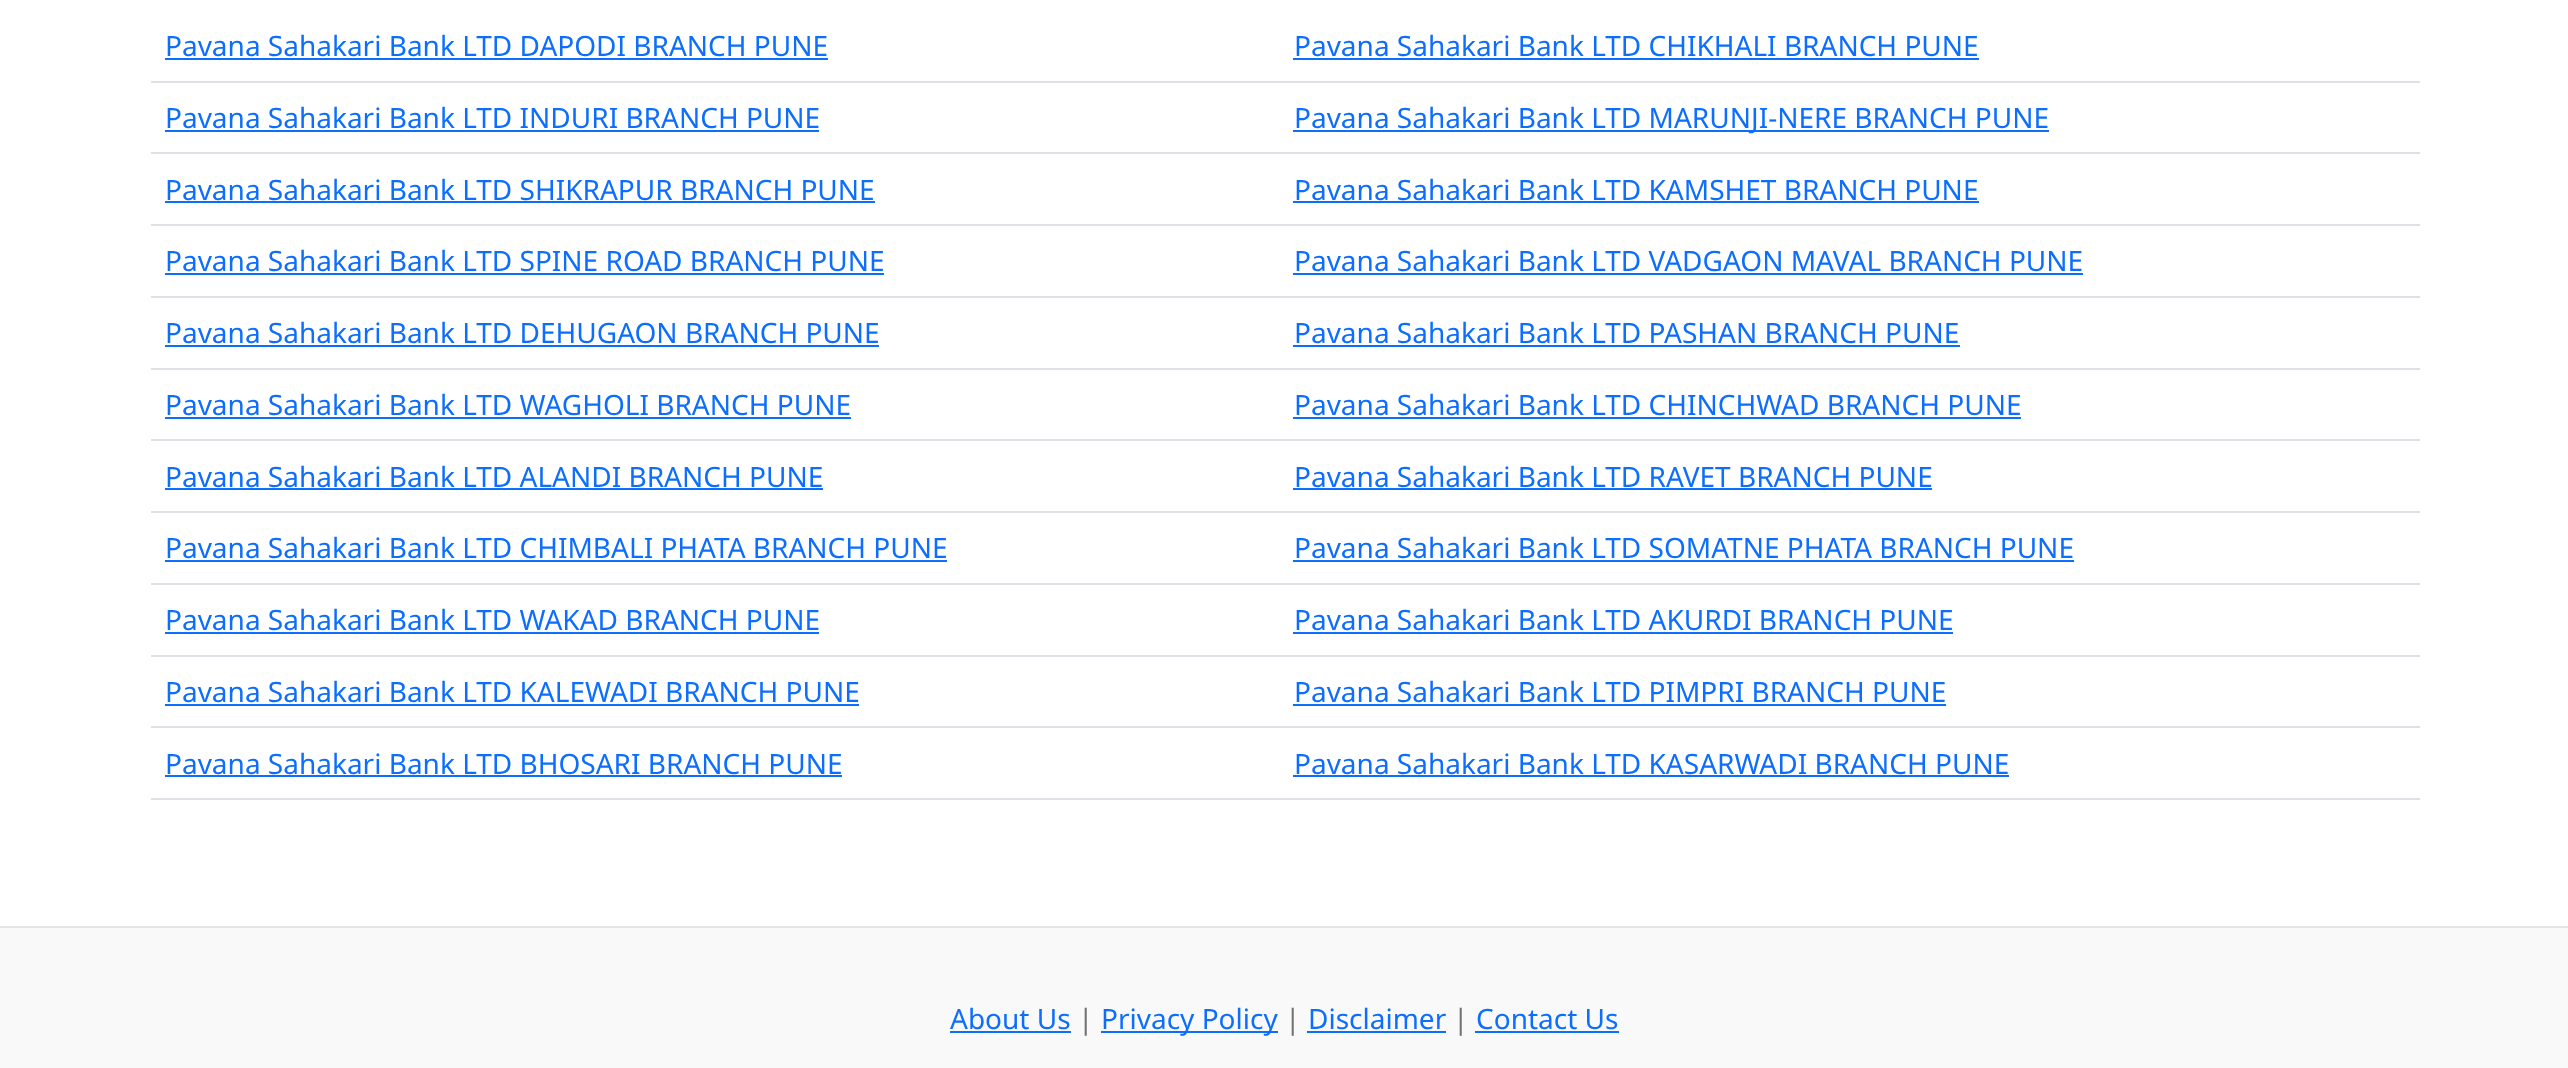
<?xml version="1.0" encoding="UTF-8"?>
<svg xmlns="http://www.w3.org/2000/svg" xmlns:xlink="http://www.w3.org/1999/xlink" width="2568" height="1068">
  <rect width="100%" height="100%" fill="#ffffff" />
  <rect x="165" y="58" width="663" height="2" fill="#0d6efd" />
  <rect x="151" y="81" width="2269" height="2" fill="#dee2e6" />
  <rect x="1293" y="58" width="686" height="2" fill="#0d6efd" />
  <rect x="165" y="130" width="654" height="2" fill="#0d6efd" />
  <rect x="151" y="152" width="2269" height="2" fill="#dee2e6" />
  <rect x="1293" y="130" width="756" height="2" fill="#0d6efd" />
  <rect x="165" y="201" width="710" height="2" fill="#0d6efd" />
  <rect x="151" y="224" width="2269" height="2" fill="#dee2e6" />
  <rect x="1293" y="201" width="686" height="2" fill="#0d6efd" />
  <rect x="165" y="273" width="719" height="2" fill="#0d6efd" />
  <rect x="151" y="296" width="2269" height="2" fill="#dee2e6" />
  <rect x="1293" y="273" width="790" height="2" fill="#0d6efd" />
  <rect x="165" y="345" width="714" height="2" fill="#0d6efd" />
  <rect x="151" y="368" width="2269" height="2" fill="#dee2e6" />
  <rect x="1293" y="345" width="667" height="2" fill="#0d6efd" />
  <rect x="165" y="417" width="686" height="2" fill="#0d6efd" />
  <rect x="151" y="439" width="2269" height="2" fill="#dee2e6" />
  <rect x="1293" y="417" width="728" height="2" fill="#0d6efd" />
  <rect x="165" y="488" width="658" height="2" fill="#0d6efd" />
  <rect x="151" y="511" width="2269" height="2" fill="#dee2e6" />
  <rect x="1293" y="488" width="639" height="2" fill="#0d6efd" />
  <rect x="165" y="560" width="782" height="2" fill="#0d6efd" />
  <rect x="151" y="583" width="2269" height="2" fill="#dee2e6" />
  <rect x="1293" y="560" width="781" height="2" fill="#0d6efd" />
  <rect x="165" y="632" width="654" height="2" fill="#0d6efd" />
  <rect x="151" y="655" width="2269" height="2" fill="#dee2e6" />
  <rect x="1293" y="632" width="660" height="2" fill="#0d6efd" />
  <rect x="165" y="704" width="694" height="2" fill="#0d6efd" />
  <rect x="151" y="726" width="2269" height="2" fill="#dee2e6" />
  <rect x="1293" y="704" width="653" height="2" fill="#0d6efd" />
  <rect x="165" y="775" width="677" height="2" fill="#0d6efd" />
  <rect x="151" y="798" width="2269" height="2" fill="#dee2e6" />
  <rect x="1293" y="775" width="716" height="2" fill="#0d6efd" />
  <rect y="928" width="2568" height="140" fill="#f9f9f9" />
  <rect y="926" width="2568" height="2" fill="#e5e5e5" />
  <rect x="950" y="1031" width="121" height="2" fill="#0d6efd" />
  <rect x="1101" y="1031" width="177" height="2" fill="#0d6efd" />
  <rect x="1307" y="1031" width="139" height="2" fill="#0d6efd" />
  <rect x="1475" y="1031" width="144" height="2" fill="#0d6efd" />
  <text x="165" y="56" style="font-family: Noto Sans; font-size: 28px; fill: #0d6efd">Pavana Sahakari Bank LTD DAPODI BRANCH PUNE</text>
  <text x="1294" y="56" style="font-family: Noto Sans; font-size: 28px; fill: #0d6efd">Pavana Sahakari Bank LTD CHIKHALI BRANCH PUNE</text>
  <text x="165" y="128" style="font-family: Noto Sans; font-size: 28px; fill: #0d6efd">Pavana Sahakari Bank LTD INDURI BRANCH PUNE</text>
  <text x="1294" y="128" style="font-family: Noto Sans; font-size: 28px; fill: #0d6efd">Pavana Sahakari Bank LTD MARUNJI-NERE BRANCH PUNE</text>
  <text x="165" y="200" style="font-family: Noto Sans; font-size: 28px; fill: #0d6efd">Pavana Sahakari Bank LTD SHIKRAPUR BRANCH PUNE</text>
  <text x="1294" y="200" style="font-family: Noto Sans; font-size: 28px; fill: #0d6efd">Pavana Sahakari Bank LTD KAMSHET BRANCH PUNE</text>
  <text x="165" y="271" style="font-family: Noto Sans; font-size: 28px; fill: #0d6efd">Pavana Sahakari Bank LTD SPINE ROAD BRANCH PUNE</text>
  <text x="1294" y="271" style="font-family: Noto Sans; font-size: 28px; fill: #0d6efd">Pavana Sahakari Bank LTD VADGAON MAVAL BRANCH PUNE</text>
  <text x="165" y="343" style="font-family: Noto Sans; font-size: 28px; fill: #0d6efd">Pavana Sahakari Bank LTD DEHUGAON BRANCH PUNE</text>
  <text x="1294" y="343" style="font-family: Noto Sans; font-size: 28px; fill: #0d6efd">Pavana Sahakari Bank LTD PASHAN BRANCH PUNE</text>
  <text x="165" y="415" style="font-family: Noto Sans; font-size: 28px; fill: #0d6efd">Pavana Sahakari Bank LTD WAGHOLI BRANCH PUNE</text>
  <text x="1294" y="415" style="font-family: Noto Sans; font-size: 28px; fill: #0d6efd">Pavana Sahakari Bank LTD CHINCHWAD BRANCH PUNE</text>
  <text x="165" y="487" style="font-family: Noto Sans; font-size: 28px; fill: #0d6efd">Pavana Sahakari Bank LTD ALANDI BRANCH PUNE</text>
  <text x="1294" y="487" style="font-family: Noto Sans; font-size: 28px; fill: #0d6efd">Pavana Sahakari Bank LTD RAVET BRANCH PUNE</text>
  <text x="165" y="558" style="font-family: Noto Sans; font-size: 28px; fill: #0d6efd">Pavana Sahakari Bank LTD CHIMBALI PHATA BRANCH PUNE</text>
  <text x="1294" y="558" style="font-family: Noto Sans; font-size: 28px; fill: #0d6efd">Pavana Sahakari Bank LTD SOMATNE PHATA BRANCH PUNE</text>
  <text x="165" y="630" style="font-family: Noto Sans; font-size: 28px; fill: #0d6efd">Pavana Sahakari Bank LTD WAKAD BRANCH PUNE</text>
  <text x="1294" y="630" style="font-family: Noto Sans; font-size: 28px; fill: #0d6efd">Pavana Sahakari Bank LTD AKURDI BRANCH PUNE</text>
  <text x="165" y="702" style="font-family: Noto Sans; font-size: 28px; fill: #0d6efd">Pavana Sahakari Bank LTD KALEWADI BRANCH PUNE</text>
  <text x="1294" y="702" style="font-family: Noto Sans; font-size: 28px; fill: #0d6efd">Pavana Sahakari Bank LTD PIMPRI BRANCH PUNE</text>
  <text x="165" y="774" style="font-family: Noto Sans; font-size: 28px; fill: #0d6efd">Pavana Sahakari Bank LTD BHOSARI BRANCH PUNE</text>
  <text x="1294" y="774" style="font-family: Noto Sans; font-size: 28px; fill: #0d6efd">Pavana Sahakari Bank LTD KASARWADI BRANCH PUNE</text>
  <text x="950" y="1029" style="font-family: Noto Sans; font-size: 28px; fill: #0d6efd">About Us</text>
  <text x="1078" y="1029" style="font-family: Noto Sans; font-size: 28px; fill: #727272">|</text>
  <text x="1101" y="1029" style="font-family: Noto Sans; font-size: 28px; fill: #0d6efd">Privacy Policy</text>
  <text x="1285" y="1029" style="font-family: Noto Sans; font-size: 28px; fill: #727272">|</text>
  <text x="1308" y="1029" style="font-family: Noto Sans; font-size: 28px; fill: #0d6efd">Disclaimer</text>
  <text x="1453" y="1029" style="font-family: Noto Sans; font-size: 28px; fill: #727272">|</text>
  <text x="1476" y="1029" style="font-family: Noto Sans; font-size: 28px; fill: #0d6efd">Contact Us</text>
</svg>
